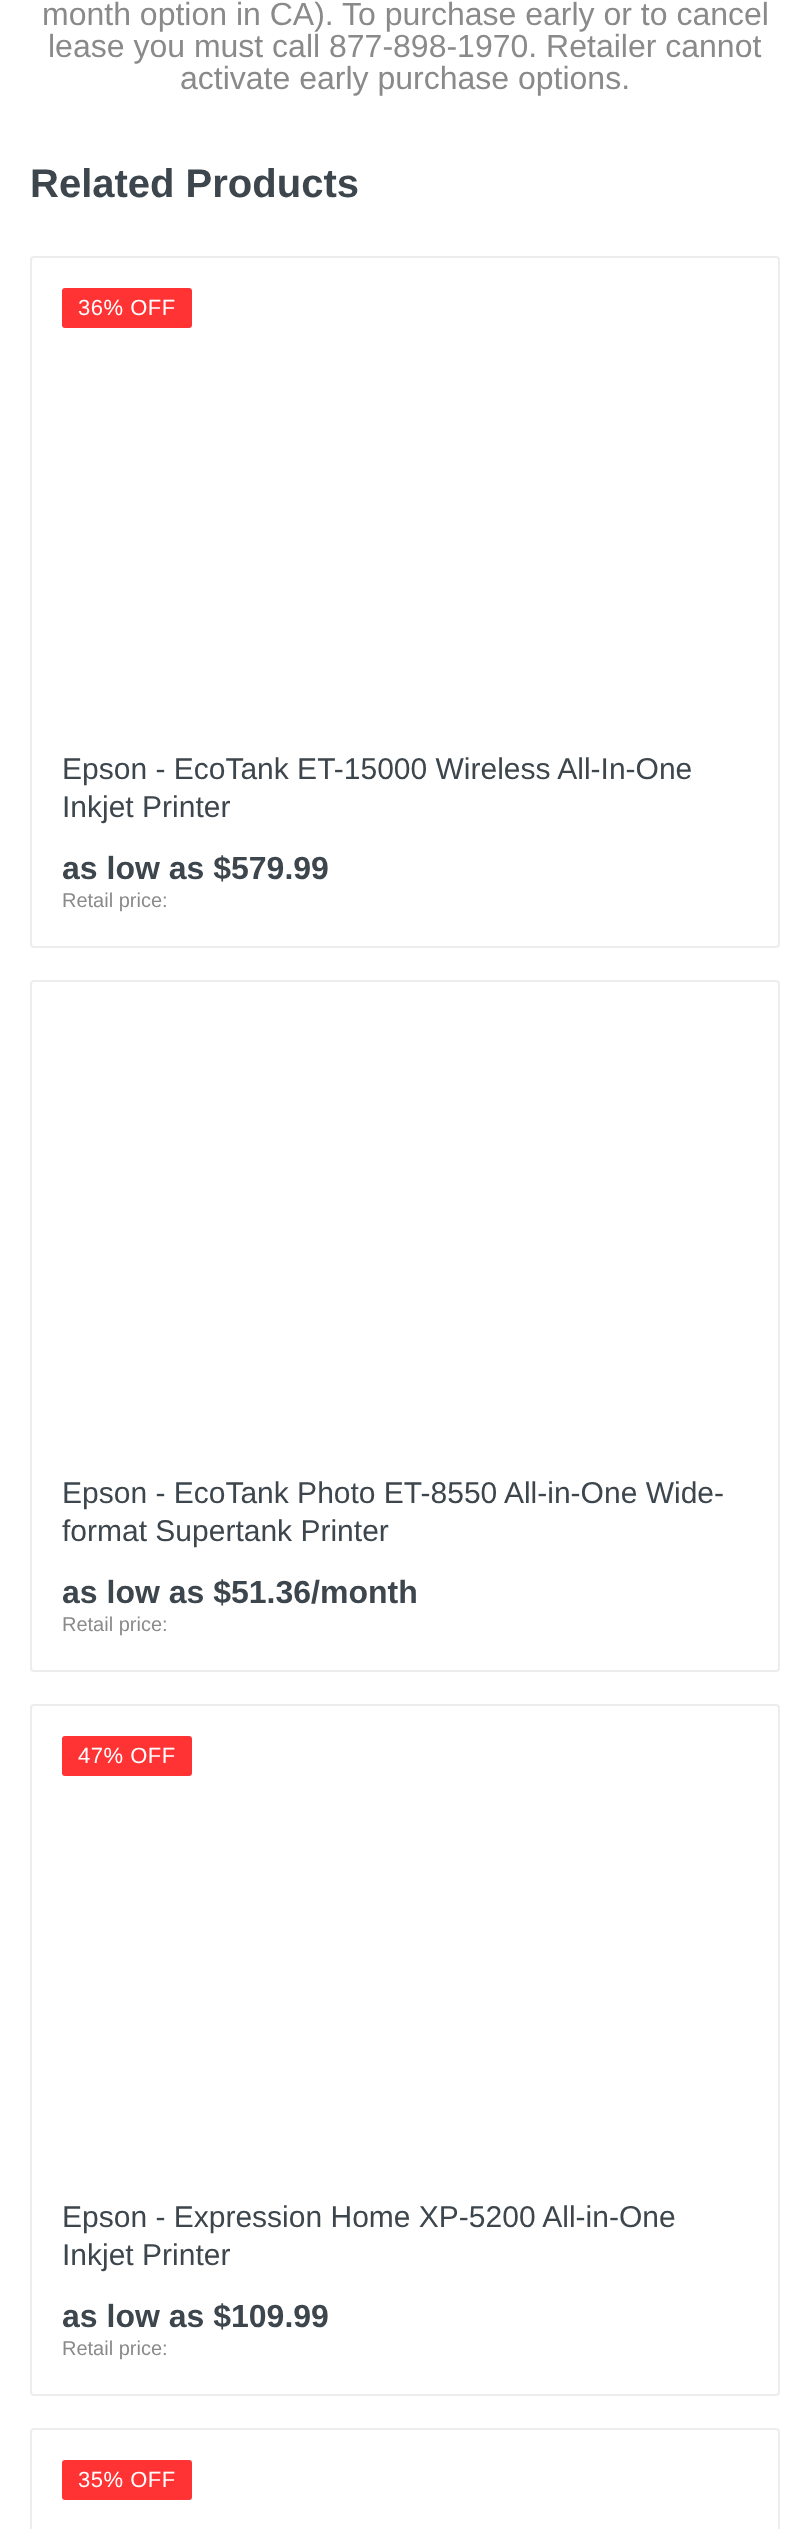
<?xml version="1.0" encoding="UTF-8"?>
<svg xmlns="http://www.w3.org/2000/svg" xmlns:xlink="http://www.w3.org/1999/xlink" width="809" height="2529">
  <rect width="100%" height="100%" fill="#ffffff" />
  <rect x="31" y="257" width="748" height="690" rx="3" fill="none" stroke="#ededed" stroke-width="2" />
  <rect x="62" y="288" width="130" height="40" rx="3" fill="#ff3333" />
  <rect x="31" y="981" width="748" height="690" rx="3" fill="none" stroke="#ededed" stroke-width="2" />
  <rect x="31" y="1705" width="748" height="690" rx="3" fill="none" stroke="#ededed" stroke-width="2" />
  <rect x="62" y="1736" width="130" height="40" rx="3" fill="#ff3333" />
  <rect x="31" y="2429" width="748" height="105" rx="3" fill="none" stroke="#ededed" stroke-width="2" />
  <rect x="62" y="2460" width="130" height="40" rx="3" fill="#ff3333" />
  <text x="42" y="25" style="font-family: Liberation Sans; font-size: 32px; fill: #8a8a8a">month option in CA). To purchase early or to cancel</text>
  <text x="48" y="57" style="font-family: Liberation Sans; font-size: 32px; fill: #8a8a8a">lease you must call 877-898-1970. Retailer cannot</text>
  <text x="180" y="89" style="font-family: Liberation Sans; font-size: 32px; fill: #8a8a8a">activate early purchase options.</text>
  <text x="30" y="197" style="font-family: Liberation Sans; font-size: 40px; font-weight: bold; fill: #3d464d">Related Products</text>
  <text x="78" y="315" style="font-family: Liberation Sans; font-size: 22px; letter-spacing: 0.5px; fill: #ffffff">36% OFF</text>
  <text x="62" y="779" style="font-family: Liberation Sans; font-size: 30px; fill: #3d464d">Epson - EcoTank ET-15000 Wireless All-In-One</text>
  <text x="62" y="817" style="font-family: Liberation Sans; font-size: 30px; fill: #3d464d">Inkjet Printer</text>
  <text x="62" y="879" style="font-family: Liberation Sans; font-size: 32px; font-weight: bold; fill: #3d464d">as low as $579.99</text>
  <text x="62" y="907" style="font-family: Liberation Sans; font-size: 20px; fill: #8a8a8a">Retail price:</text>
  <text x="62" y="1503" style="font-family: Liberation Sans; font-size: 30px; fill: #3d464d">Epson - EcoTank Photo ET-8550 All-in-One Wide-</text>
  <text x="62" y="1541" style="font-family: Liberation Sans; font-size: 30px; fill: #3d464d">format Supertank Printer</text>
  <text x="62" y="1603" style="font-family: Liberation Sans; font-size: 32px; font-weight: bold; fill: #3d464d">as low as $51.36/month</text>
  <text x="62" y="1631" style="font-family: Liberation Sans; font-size: 20px; fill: #8a8a8a">Retail price:</text>
  <text x="78" y="1763" style="font-family: Liberation Sans; font-size: 22px; letter-spacing: 0.5px; fill: #ffffff">47% OFF</text>
  <text x="62" y="2227" style="font-family: Liberation Sans; font-size: 30px; fill: #3d464d">Epson - Expression Home XP-5200 All-in-One</text>
  <text x="62" y="2265" style="font-family: Liberation Sans; font-size: 30px; fill: #3d464d">Inkjet Printer</text>
  <text x="62" y="2327" style="font-family: Liberation Sans; font-size: 32px; font-weight: bold; fill: #3d464d">as low as $109.99</text>
  <text x="62" y="2355" style="font-family: Liberation Sans; font-size: 20px; fill: #8a8a8a">Retail price:</text>
  <text x="78" y="2487" style="font-family: Liberation Sans; font-size: 22px; letter-spacing: 0.5px; fill: #ffffff">35% OFF</text>
</svg>
